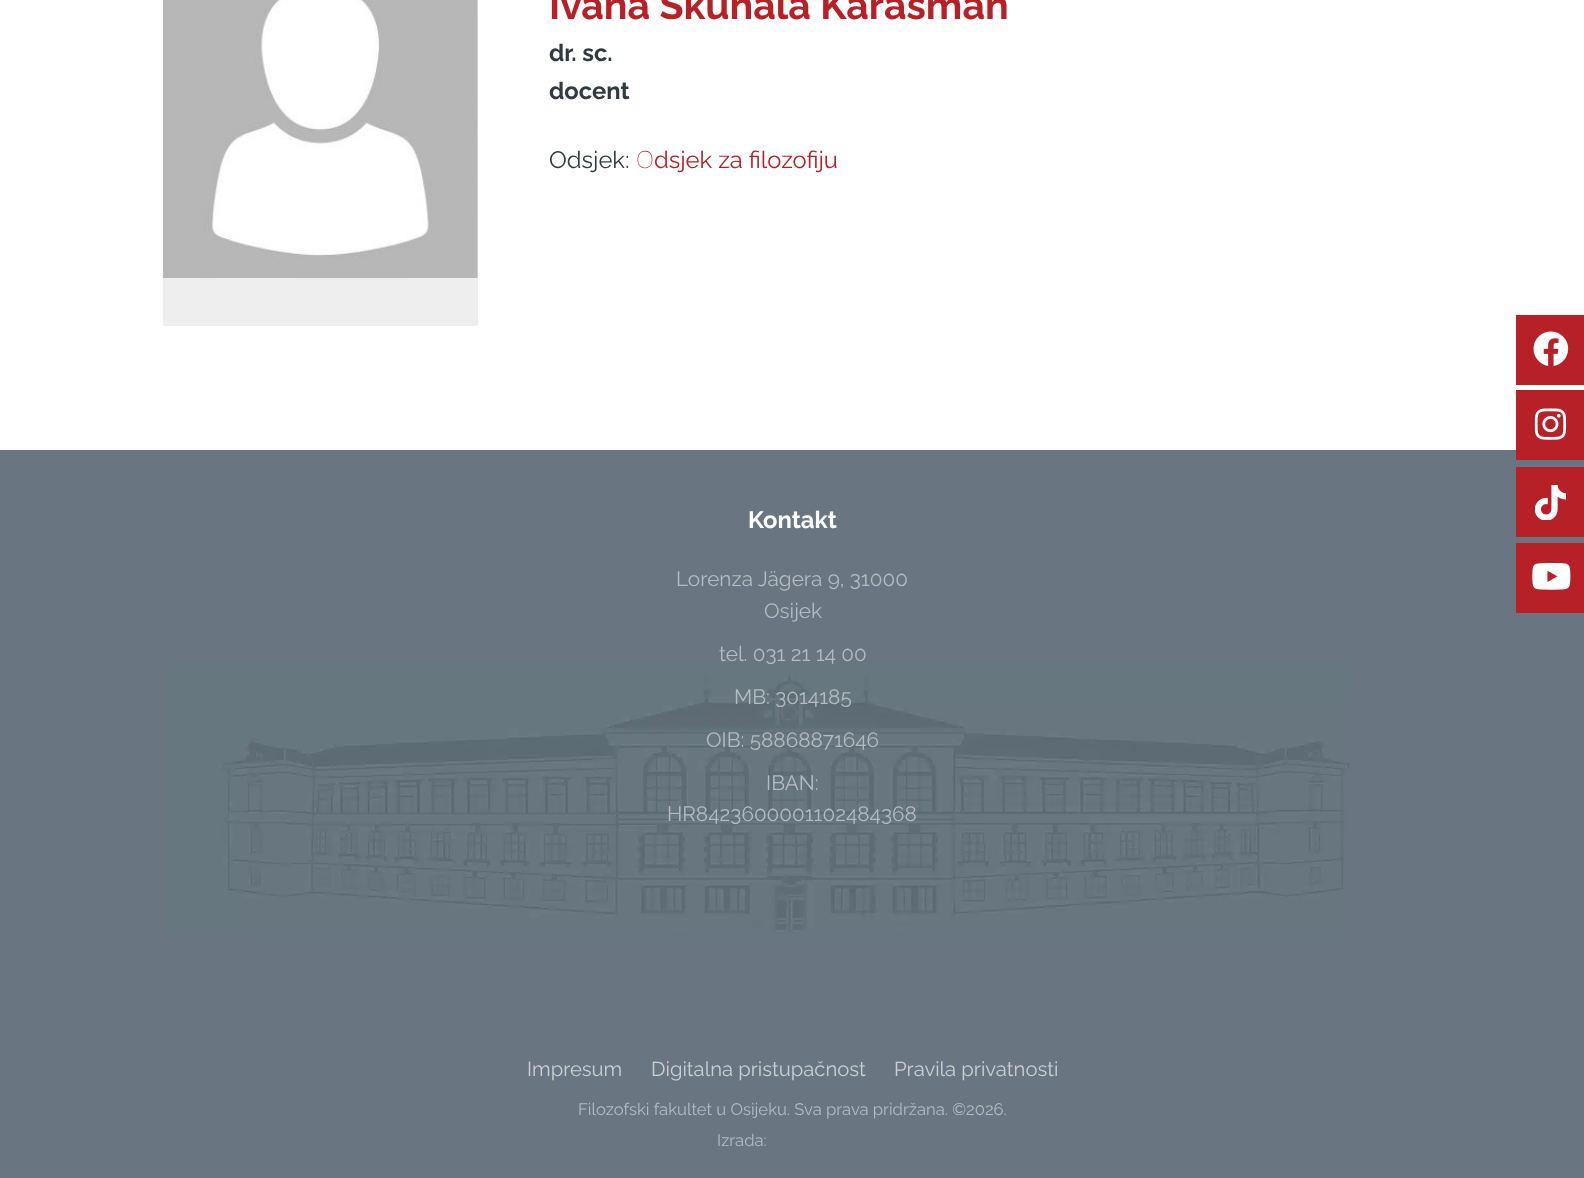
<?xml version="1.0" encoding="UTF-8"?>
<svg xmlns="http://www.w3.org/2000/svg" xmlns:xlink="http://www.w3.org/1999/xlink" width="1584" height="1178">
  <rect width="100%" height="100%" fill="#ffffff" />
  <rect x="163" width="315" height="326" fill="#eeeeee" />
  <image x="162" y="0" width="316" height="278" xlink:href="image1.png" />
  <rect y="450" width="1584" height="728" fill="#697682" />
  <image x="166" y="661" width="1184" height="272" xlink:href="image2.png" />
  <rect x="1516" y="315" width="68" height="70" fill="#b72026" />
  <image x="1533" y="331" width="36" height="35" xlink:href="image3.png" />
  <rect x="1516" y="390" width="68" height="70" fill="#b72026" />
  <image x="1534" y="408" width="33" height="32" xlink:href="image4.png" />
  <rect x="1516" y="467" width="68" height="70" fill="#b72026" />
  <image x="1535" y="485" width="31" height="35" xlink:href="image5.png" />
  <rect x="1516" y="543" width="68" height="70" fill="#b72026" />
  <image x="1532" y="563" width="39" height="27" xlink:href="image6.png" />
  <text x="549" y="19" style="font-family: Raleway; font-size: 39.25px; font-weight: bold; fill: #b72026">Ivana Skuhala Karasman</text>
  <text x="549" y="61" style="font-family: Raleway; font-size: 23.75px; font-weight: bold; fill: #303b41">dr. sc.</text>
  <text x="549" y="99" style="font-family: Raleway; font-size: 23.75px; font-weight: bold; fill: #303b41">docent</text>
  <text x="549" y="168" style="font-family: Raleway; font-size: 23.75px; fill: #303b41">Odsjek:</text>
  <text x="636" y="168" style="font-family: Noto Sans; font-size: 23.75px; font-weight: 100; fill: #b72026">O</text>
  <text x="654" y="168" style="font-family: Raleway; font-size: 23.75px; fill: #b72026">dsjek za filozofiju</text>
  <text x="748" y="528" style="font-family: Raleway; font-size: 23.75px; font-weight: bold; fill: #ffffff">Kontakt</text>
  <text x="676" y="586" style="font-family: Raleway; font-size: 20.75px; fill: #b4bbc1">Lorenza Jägera 9, 31000</text>
  <text x="764" y="618" style="font-family: Raleway; font-size: 20.75px; fill: #b4bbc1">Osijek</text>
  <text x="719" y="661" style="font-family: Raleway; font-size: 20.75px; fill: #b4bbc1">tel. 031 21 14 00</text>
  <text x="734" y="704" style="font-family: Raleway; font-size: 20.75px; fill: #b4bbc1">MB: 3014185</text>
  <text x="706" y="747" style="font-family: Raleway; font-size: 20.75px; fill: #b4bbc1">OIB: 58868871646</text>
  <text x="766" y="790" style="font-family: Raleway; font-size: 20.75px; fill: #b4bbc1">IBAN:</text>
  <text x="667" y="821" style="font-family: Raleway; font-size: 20.75px; fill: #b4bbc1">HR8423600001102484368</text>
  <text x="527" y="1076" style="font-family: Raleway; font-size: 20.25px; fill: #cbcfd3">Impresum</text>
  <text x="651" y="1076" style="font-family: Raleway; font-size: 20.25px; fill: #cbcfd3">Digitalna pristupačnost</text>
  <text x="894" y="1076" style="font-family: Raleway; font-size: 20.25px; fill: #cbcfd3">Pravila privatnosti</text>
  <text x="578" y="1115" style="font-family: Raleway; font-size: 16.65px; fill: #b4bbc1">Filozofski fakultet u Osijeku. Sva prava pridržana. ©2026.</text>
  <text x="717" y="1146" style="font-family: Raleway; font-size: 16.65px; fill: #b4bbc1">Izrada:</text>
</svg>
